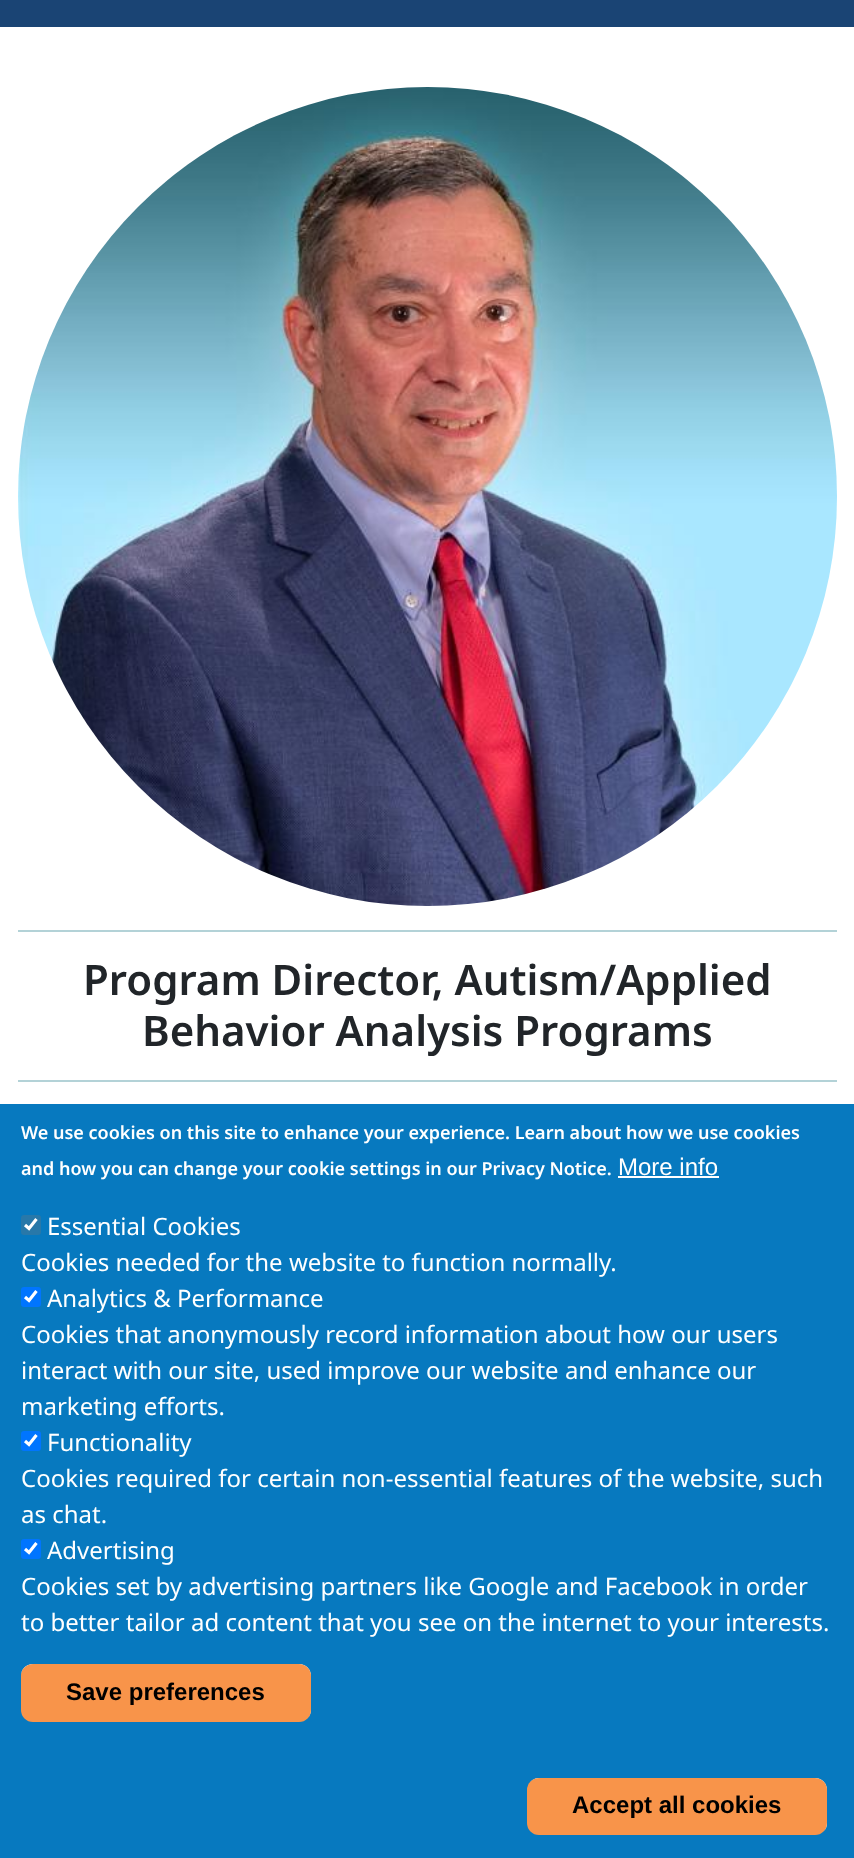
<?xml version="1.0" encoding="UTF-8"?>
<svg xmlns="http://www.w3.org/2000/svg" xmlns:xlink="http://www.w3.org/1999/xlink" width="854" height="1858">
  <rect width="100%" height="100%" fill="#ffffff" />
  <rect width="854" height="27" fill="#002f65" />
  <path d="M 86 -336 h 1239 l -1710 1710 h -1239 z" fill="#ffffff" fill-opacity="0.1" />
  <image x="18" y="87" width="819" height="819" xlink:href="image1.png" />
  <rect x="18" y="930" width="819" height="2" fill="#b3d2d7" />
  <rect x="18" y="1080" width="819" height="2" fill="#b3d2d7" />
  <rect y="1104" width="854" height="754" fill="#0779bf" />
  <rect x="618" y="1176" width="101" height="2" fill="#ffffff" />
  <rect x="21" y="1215" width="20" height="20" rx="3" fill="#2878a9" />
  <path d="M 25 1225 l 4 3.5 l 7.5 -9.5" fill="none" stroke="#ffffff" stroke-width="3.1" />
  <rect x="21" y="1287" width="20" height="20" rx="3" fill="#0075ff" />
  <path d="M 25 1297 l 4 3.5 l 7.5 -9.5" fill="none" stroke="#ffffff" stroke-width="3.1" />
  <rect x="21" y="1431" width="20" height="20" rx="3" fill="#0075ff" />
  <path d="M 25 1441 l 4 3.5 l 7.5 -9.5" fill="none" stroke="#ffffff" stroke-width="3.1" />
  <rect x="21" y="1539" width="20" height="20" rx="3" fill="#0075ff" />
  <path d="M 25 1549 l 4 3.5 l 7.5 -9.5" fill="none" stroke="#ffffff" stroke-width="3.1" />
  <path d="M 33 1665 h 265 c 7 0 12 5 12 12 v 35 l -1 5 c 1 -2 2 -5 2 -7 v -34 c 0 -7 -5 -12 -12 -12 h -266 c -7 0 -12 5 -12 12 v 1 c 0 -7 5 -12 12 -12 z" fill="#ffffff" />
  <rect x="21" y="1664" width="290" height="58" rx="12" fill="#f8944a" />
  <path d="M 538 1779 h 276 c 7 0 12 5 12 12 v 33 c 0 3 -1 5 -2 7 c 2 -2 3 -5 3 -8 v -33 c 0 -7 -5 -12 -12 -12 h -276 c -4 0 -7 2 -9 4 c 2 -2 5 -3 8 -3 z" fill="#ffffff" />
  <rect x="527" y="1778" width="300" height="57" rx="12" fill="#f8944a" />
  <text x="83" y="995" style="font-family: Noto Sans; font-size: 42px; font-weight: 600; fill: #212529">Program Director, Autism/Applied</text>
  <text x="142" y="1046" style="font-family: Noto Sans; font-size: 42px; font-weight: 600; fill: #212529">Behavior Analysis Programs</text>
  <text x="21" y="1139" style="font-family: Noto Sans; font-size: 18px; font-weight: 600; fill: #ffffff">We use cookies on this site to enhance your experience. Learn about how we use cookies</text>
  <text x="21" y="1175" style="font-family: Noto Sans; font-size: 18px; font-weight: 600; fill: #ffffff">and how you can change your cookie settings in our Privacy Notice.</text>
  <text x="618" y="1175" style="font-family: Liberation Sans; font-size: 24px; fill: #ffffff">More info</text>
  <text x="47" y="1235" style="font-family: Noto Sans; font-size: 24px; fill: #ffffff">Essential Cookies</text>
  <text x="21" y="1271" style="font-family: Noto Sans; font-size: 24px; fill: #ffffff">Cookies needed for the website to function normally.</text>
  <text x="47" y="1307" style="font-family: Noto Sans; font-size: 24px; fill: #ffffff">Analytics &amp; Performance</text>
  <text x="21" y="1343" style="font-family: Noto Sans; font-size: 24px; fill: #ffffff">Cookies that anonymously record information about how our users</text>
  <text x="21" y="1379" style="font-family: Noto Sans; font-size: 24px; fill: #ffffff">interact with our site, used improve our website and enhance our</text>
  <text x="21" y="1415" style="font-family: Noto Sans; font-size: 24px; fill: #ffffff">marketing efforts.</text>
  <text x="47" y="1451" style="font-family: Noto Sans; font-size: 24px; fill: #ffffff">Functionality</text>
  <text x="21" y="1487" style="font-family: Noto Sans; font-size: 24px; fill: #ffffff">Cookies required for certain non-essential features of the website, such</text>
  <text x="21" y="1523" style="font-family: Noto Sans; font-size: 24px; fill: #ffffff">as chat.</text>
  <text x="47" y="1559" style="font-family: Noto Sans; font-size: 24px; fill: #ffffff">Advertising</text>
  <text x="21" y="1595" style="font-family: Noto Sans; font-size: 24px; fill: #ffffff">Cookies set by advertising partners like Google and Facebook in order</text>
  <text x="21" y="1631" style="font-family: Noto Sans; font-size: 24px; fill: #ffffff">to better tailor ad content that you see on the internet to your interests.</text>
  <text x="66" y="1700" style="font-family: Liberation Sans; font-size: 24px; font-weight: bold; fill: #000000">Save preferences</text>
  <text x="572" y="1813" style="font-family: Liberation Sans; font-size: 24px; font-weight: bold; fill: #000000">Accept all cookies</text>
</svg>
